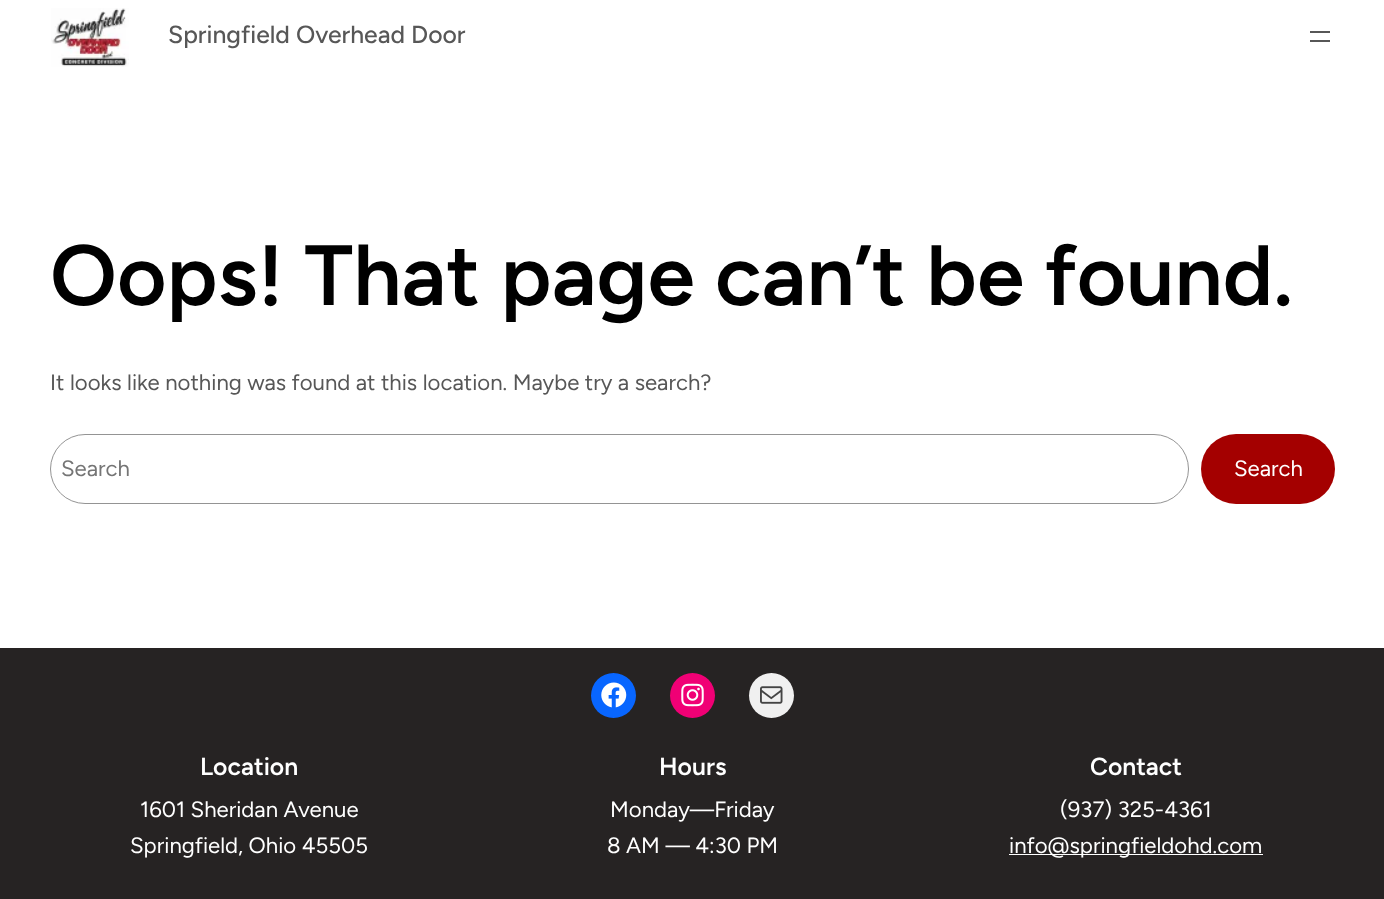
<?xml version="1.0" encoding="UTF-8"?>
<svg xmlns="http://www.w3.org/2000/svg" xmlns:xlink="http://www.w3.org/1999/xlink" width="1384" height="899">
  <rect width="100%" height="100%" fill="#ffffff" />
  <image x="51" y="8" width="78" height="59" xlink:href="image1.png" />
  <rect x="1310" y="31" width="20" height="2" fill="#575757" />
  <rect x="1310" y="40" width="20" height="2" fill="#575757" />
  <rect x="50.5" y="434.5" width="1138" height="69" rx="34.5" fill="none" stroke="#949494" />
  <rect x="1201" y="434" width="134" height="70" rx="35" fill="#a40000" />
  <rect y="648" width="1384" height="251" fill="#262323" />
  <circle cx="613.5" cy="695.5" r="22.5" fill="#0866ff" />
  <image x="601" y="682" width="26" height="26" xlink:href="image2.png" />
  <circle cx="692.5" cy="695.5" r="22.5" fill="#f00075" />
  <image x="681" y="683" width="23" height="24" xlink:href="image3.png" />
  <circle cx="771.5" cy="695.5" r="22.5" fill="#f0f0f0" />
  <image x="760" y="686" width="23" height="18" xlink:href="image4.png" />
  <rect x="1009" y="854" width="254" height="1" fill="#ffffff" />
  <text x="168" y="43" style="font-family: Figtree; font-size: 24.75px; font-weight: 500; fill: #575757">Springfield Overhead Door</text>
  <text x="50" y="305" style="font-family: Figtree; font-size: 85.5px; font-weight: 600; fill: #000000">Oops! That page can’t be found.</text>
  <text x="50" y="390" style="font-family: Figtree; font-size: 22.2px; fill: #575757">It looks like nothing was found at this location. Maybe try a search?</text>
  <text x="61" y="476" style="font-family: Figtree; font-size: 22.2px; fill: #757575">Search</text>
  <text x="1234" y="476" style="font-family: Figtree; font-size: 22.2px; fill: #ffffff">Search</text>
  <text x="200" y="775" style="font-family: Figtree; font-size: 24.75px; font-weight: 600; fill: #ffffff">Location</text>
  <text x="140" y="817" style="font-family: Figtree; font-size: 22.2px; fill: #ffffff">1601 Sheridan Avenue</text>
  <text x="130" y="853" style="font-family: Figtree; font-size: 22.2px; fill: #ffffff">Springfield, Ohio 45505</text>
  <text x="659" y="775" style="font-family: Figtree; font-size: 24.75px; font-weight: 600; fill: #ffffff">Hours</text>
  <text x="610" y="817" style="font-family: Figtree; font-size: 22.2px; fill: #ffffff">Monday—Friday</text>
  <text x="607" y="853" style="font-family: Figtree; font-size: 22.2px; fill: #ffffff">8 AM — 4:30 PM</text>
  <text x="1090" y="775" style="font-family: Figtree; font-size: 24.75px; font-weight: 600; fill: #ffffff">Contact</text>
  <text x="1060" y="817" style="font-family: Figtree; font-size: 22.2px; fill: #ffffff">(937) 325-4361</text>
  <text x="1009" y="853" style="font-family: Figtree; font-size: 22.2px; fill: #ffffff">info@springfieldohd.com</text>
</svg>
